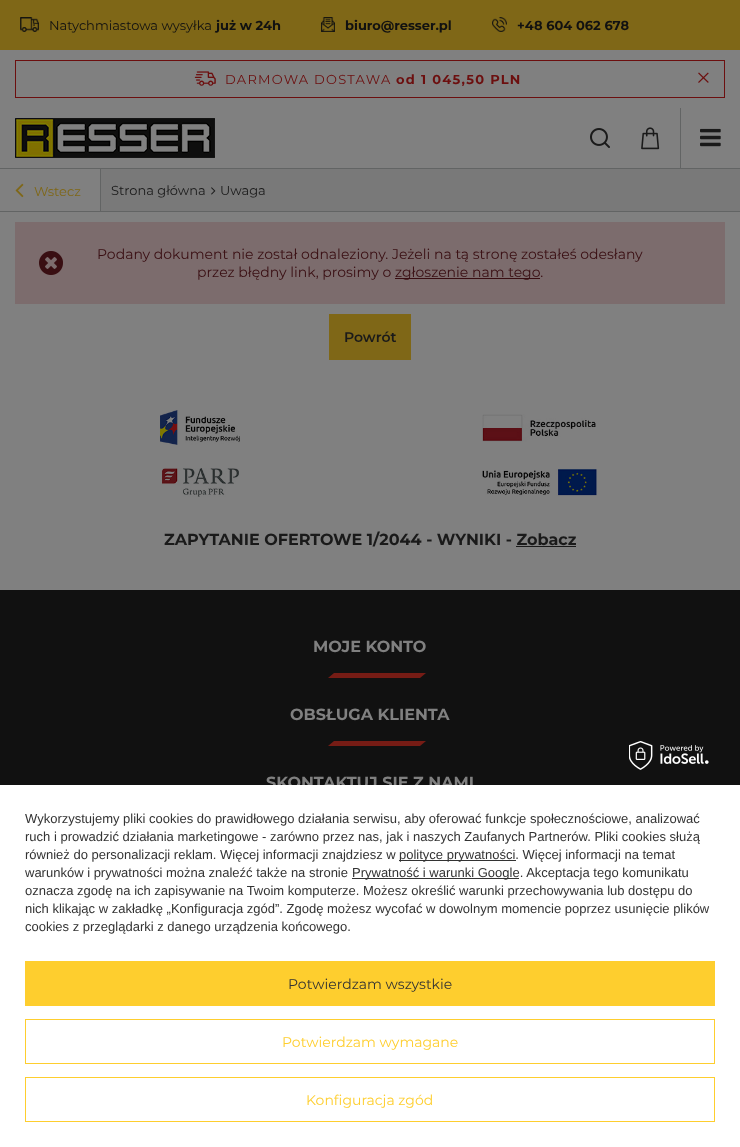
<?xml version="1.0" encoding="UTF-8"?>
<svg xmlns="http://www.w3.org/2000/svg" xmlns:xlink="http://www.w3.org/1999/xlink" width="740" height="1147">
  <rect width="100%" height="100%" fill="#808080" />
  <rect y="168" width="740" height="1" fill="#626464" />
  <rect width="740" height="50" fill="#7f6717" />
  <image x="20" y="17" width="19" height="15" xlink:href="image1.png" />
  <image x="321" y="17" width="14" height="15" xlink:href="image2.png" />
  <image x="492" y="17" width="15" height="15" xlink:href="image3.png" />
  <rect x="15.5" y="60.5" width="709" height="37" fill="none" stroke="#6c0f0f" />
  <image x="194" y="71" width="22" height="15" xlink:href="image4.png" />
  <image x="698" y="72" width="11" height="11" xlink:href="image5.png" />
  <image x="15" y="118" width="200" height="40" xlink:href="image6.png" />
  <image x="590" y="128" width="20" height="20" xlink:href="image7.png" />
  <image x="641" y="127" width="19" height="23" xlink:href="image8.png" />
  <rect x="680" y="108" width="1" height="60" fill="#626464" />
  <image x="700" y="128" width="21" height="19" xlink:href="image9.png" />
  <rect x="101" y="169" width="639" height="42" fill="#797979" />
  <image x="15" y="183" width="9" height="15" xlink:href="image10.png" />
  <rect x="100" y="169" width="1" height="43" fill="#626464" />
  <image x="211" y="187" width="5" height="8" xlink:href="image11.png" />
  <rect y="211" width="740" height="1" fill="#626464" />
  <rect x="15" y="222" width="710" height="82" fill="#7c6c6d" />
  <image x="39" y="251" width="24" height="24" xlink:href="image12.png" />
  <rect x="395" y="278" width="145" height="1" fill="#390e12" />
  <rect x="329" y="314" width="82" height="46" fill="#7f6717" />
  <image x="160" y="410" width="80" height="35" xlink:href="image13.png" />
  <image x="482" y="414" width="114" height="28" xlink:href="image14.png" />
  <image x="162" y="468" width="77" height="29" xlink:href="image15.png" />
  <image x="482" y="469" width="115" height="27" xlink:href="image16.png" />
  <rect x="516" y="546" width="60" height="1" fill="#1a1a1a" />
  <rect y="590" width="740" height="195" fill="#111111" />
  <path d="M 334 673 h 92 l -6 5 h -92 z" fill="#761c15" />
  <path d="M 334 741 h 92 l -6 5 h -92 z" fill="#761c15" />
  <image x="629" y="741" width="80" height="29" xlink:href="image17.png" />
  <text x="49" y="30" style="font-family: Montserrat; font-size: 13px; fill: #111111">Natychmiastowa wysyłka</text>
  <text x="216" y="30" style="font-family: Montserrat; font-size: 13px; font-weight: bold; fill: #111111">już w 24h</text>
  <text x="345" y="30" style="font-family: Montserrat; font-size: 13px; font-weight: bold; fill: #111111">biuro@resser.pl</text>
  <text x="517" y="30" style="font-family: Montserrat; font-size: 13px; font-weight: bold; fill: #111111">+48 604 062 678</text>
  <text x="225" y="84" style="font-family: Montserrat; font-size: 13px; letter-spacing: 1.25px; fill: #6c0f0f">DARMOWA DOSTAWA</text>
  <text x="396" y="84" style="font-family: Montserrat; font-size: 13px; font-weight: bold; letter-spacing: 1.25px; fill: #6c0f0f">od 1 045,50 PLN</text>
  <text x="34" y="196" style="font-family: Montserrat; font-size: 13px; fill: #7f6717">Wstecz</text>
  <text x="111" y="195" style="font-family: Montserrat; font-size: 13px; fill: #1a1a1a">Strona główna</text>
  <text x="220" y="195" style="font-family: Montserrat; font-size: 13px; fill: #1a1a1a">Uwaga</text>
  <text x="97" y="259" style="font-family: Montserrat; font-size: 14px; fill: #390e12">Podany dokument nie został odnaleziony. Jeżeli na tą stronę zostałeś odesłany</text>
  <text x="197" y="277" style="font-family: Montserrat; font-size: 14px; fill: #390e12">przez błędny link, prosimy o</text>
  <text x="395" y="277" style="font-family: Montserrat; font-size: 14px; fill: #390e12">zgłoszenie nam tego.</text>
  <text x="344" y="342" style="font-family: Montserrat; font-size: 14px; font-weight: 600; fill: #1a1a1a">Powrót</text>
  <text x="164" y="545" style="font-family: Montserrat; font-size: 16px; font-weight: bold; fill: #1a1a1a">ZAPYTANIE OFERTOWE 1/2044 - WYNIKI - Zobacz</text>
  <text x="313" y="652" style="font-family: Montserrat; font-size: 16px; font-weight: bold; fill: #808080">MOJE KONTO</text>
  <text x="290" y="720" style="font-family: Montserrat; font-size: 16px; font-weight: bold; fill: #808080">OBSŁUGA KLIENTA</text>
  <text x="266" y="788" style="font-family: Montserrat; font-size: 16px; font-weight: bold; fill: #808080">SKONTAKTUJ SIĘ Z NAMI</text>
  <rect y="785" width="740" height="362" fill="#ffffff" />
  <text x="25" y="823" style="font-family: Liberation Sans; font-size: 13px; fill: #333333">Wykorzystujemy pliki cookies do prawidłowego działania serwisu, aby oferować funkcje społecznościowe, analizować</text>
  <text x="25" y="841" style="font-family: Liberation Sans; font-size: 13px; fill: #333333">ruch i prowadzić działania marketingowe - zarówno przez nas, jak i naszych Zaufanych Partnerów. Pliki cookies służą</text>
  <text x="25" y="859" style="font-family: Liberation Sans; font-size: 13px; fill: #333333">również do personalizacji reklam. Więcej informacji znajdziesz w</text>
  <rect x="399" y="860" width="117" height="1" fill="#333333" />
  <text x="399" y="859" style="font-family: Liberation Sans; font-size: 13px; fill: #333333">polityce prywatności. Więcej informacji na temat</text>
  <text x="25" y="877" style="font-family: Liberation Sans; font-size: 13px; fill: #333333">warunków i prywatności można znaleźć także na stronie</text>
  <rect x="352" y="878" width="167" height="1" fill="#333333" />
  <text x="352" y="877" style="font-family: Liberation Sans; font-size: 13px; fill: #333333">Prywatność i warunki Google. Akceptacja tego komunikatu</text>
  <text x="25" y="895" style="font-family: Liberation Sans; font-size: 13px; fill: #333333">oznacza zgodę na ich zapisywanie na Twoim komputerze. Możesz określić warunki przechowywania lub dostępu do</text>
  <text x="25" y="913" style="font-family: Liberation Sans; font-size: 13px; fill: #333333">nich klikając w zakładkę „Konfiguracja zgód”. Zgodę możesz wycofać w dowolnym momencie poprzez usunięcie plików</text>
  <text x="25" y="931" style="font-family: Liberation Sans; font-size: 13px; fill: #333333">cookies z przeglądarki z danego urządzenia końcowego.</text>
  <rect x="25" y="961" width="690" height="45" fill="#fece2e" />
  <text x="288" y="989" style="font-family: Montserrat; font-size: 14px; fill: #333333">Potwierdzam wszystkie</text>
  <rect x="25.5" y="1019.5" width="689" height="44" fill="none" stroke="#fece2e" />
  <text x="282" y="1047" style="font-family: Montserrat; font-size: 14px; fill: #fece2e">Potwierdzam wymagane</text>
  <rect x="25.5" y="1077.5" width="689" height="44" fill="none" stroke="#fece2e" />
  <text x="306" y="1105" style="font-family: Montserrat; font-size: 14px; fill: #fece2e">Konfiguracja zgód</text>
</svg>
